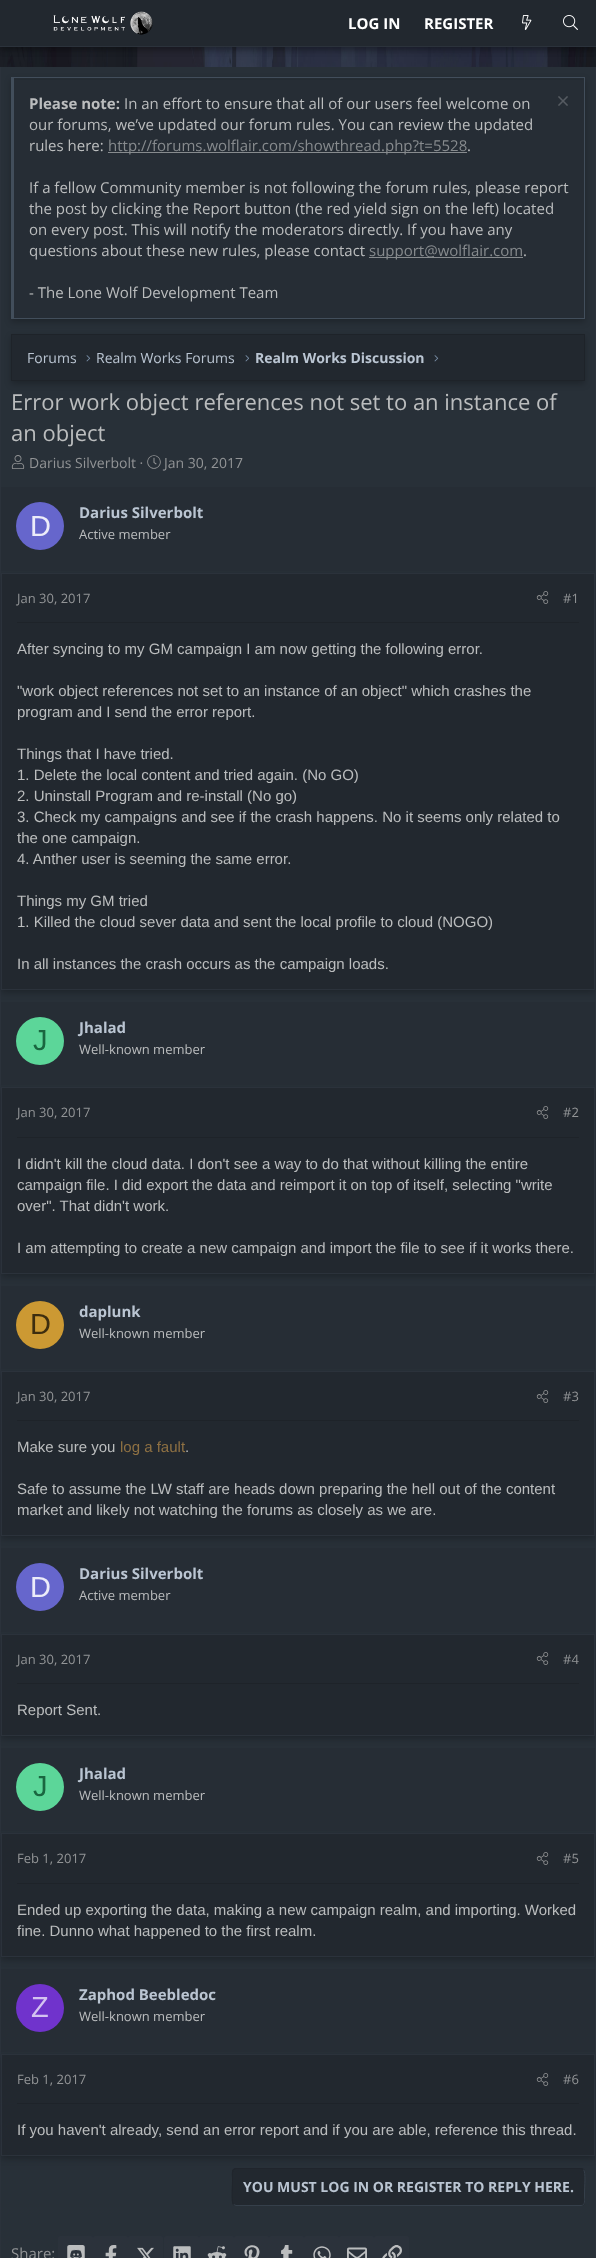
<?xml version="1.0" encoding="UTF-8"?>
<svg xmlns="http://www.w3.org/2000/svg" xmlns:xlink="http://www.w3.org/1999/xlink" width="596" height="2258">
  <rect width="100%" height="100%" fill="#ffffff" />
  <image x="0" y="47" width="596" height="20" xlink:href="image1.png" />
  <rect y="3" width="596" height="47" fill="#000000" fill-opacity="0.23" filter="blur(3px)" />
  <rect y="3" width="596" height="47" fill="#000000" fill-opacity="0.16" filter="blur(3px)" />
  <rect width="596" height="46" fill="#22282f" />
  <rect y="46" width="596" height="1" fill="#2b323b" />
  <image x="53" y="11" width="100" height="24" xlink:href="image2.png" />
  <image x="522" y="15" width="10" height="15" xlink:href="image3.png" />
  <image x="563" y="15" width="15" height="15" xlink:href="image4.png" />
  <rect x="1" y="67" width="594" height="2191" fill="#283038" />
  <rect x="595" y="67" width="1" height="2191" fill="#2b323b" />
  <rect y="67" width="1" height="2191" fill="#2b323b" />
  <rect x="11" y="80" width="574" height="242" fill="#000000" fill-opacity="0.23" filter="blur(3px)" />
  <rect x="14" y="80" width="570" height="238" fill="#262d35" />
  <rect x="11" y="77" width="574" height="1" fill="#424e5b" />
  <rect x="584" y="77" width="1" height="242" fill="#424e5b" />
  <rect x="11" y="318" width="574" height="1" fill="#424e5b" />
  <rect x="11" y="77" width="3" height="242" fill="#424e5b" />
  <image x="558" y="96" width="10" height="10" xlink:href="image5.png" />
  <rect x="108" y="152" width="359" height="1" fill="#878b8e" />
  <rect x="369" y="257" width="154" height="1" fill="#878b8e" />
  <rect x="11" y="337" width="574" height="47" fill="#000000" fill-opacity="0.23" filter="blur(3px)" />
  <rect x="11.5" y="334.5" width="573" height="46" fill="#22282f" stroke="#1e2329" />
  <image x="86" y="355" width="5" height="7" xlink:href="image6.png" />
  <image x="245" y="355" width="4" height="7" xlink:href="image7.png" />
  <image x="434" y="355" width="5" height="7" xlink:href="image6.png" />
  <image x="11" y="455" width="14" height="14" xlink:href="image8.png" />
  <image x="147" y="455" width="14" height="14" xlink:href="image9.png" />
  <rect x="1" y="576" width="594" height="417" fill="#000000" fill-opacity="0.23" filter="blur(3px)" />
  <rect x="1" y="487" width="594" height="84" fill="#262d35" />
  <circle cx="40" cy="526" r="24" fill="#6666cc" />
  <rect x="1.5" y="573.5" width="593" height="416" fill="#22282f" stroke="#2b323b" />
  <rect x="17" y="622" width="562" height="1" fill="#1e2329" />
  <image x="536" y="591" width="13" height="13" xlink:href="image10.png" />
  <rect x="1" y="1090" width="594" height="187" fill="#000000" fill-opacity="0.23" filter="blur(3px)" />
  <rect x="1" y="1002" width="594" height="83" fill="#262d35" />
  <circle cx="40" cy="1041" r="24" fill="#5cd699" />
  <rect x="1.5" y="1087.5" width="593" height="186" fill="#22282f" stroke="#2b323b" />
  <rect x="17" y="1137" width="562" height="1" fill="#1e2329" />
  <image x="536" y="1106" width="13" height="13" xlink:href="image10.png" />
  <rect x="1" y="1374" width="594" height="165" fill="#000000" fill-opacity="0.23" filter="blur(3px)" />
  <rect x="1" y="1286" width="594" height="83" fill="#262d35" />
  <circle cx="40" cy="1325" r="24" fill="#cc9933" />
  <rect x="1.5" y="1371.5" width="593" height="164" fill="#22282f" stroke="#2b323b" />
  <rect x="17" y="1420" width="562" height="1" fill="#1e2329" />
  <image x="536" y="1390" width="13" height="13" xlink:href="image10.png" />
  <rect x="1" y="1637" width="594" height="102" fill="#000000" fill-opacity="0.23" filter="blur(3px)" />
  <rect x="1" y="1548" width="594" height="84" fill="#262d35" />
  <circle cx="40" cy="1587" r="24" fill="#6666cc" />
  <rect x="1.5" y="1634.5" width="593" height="101" fill="#22282f" stroke="#2b323b" />
  <rect x="17" y="1683" width="562" height="1" fill="#1e2329" />
  <image x="536" y="1652" width="13" height="13" xlink:href="image10.png" />
  <rect x="1" y="1836" width="594" height="124" fill="#000000" fill-opacity="0.23" filter="blur(3px)" />
  <rect x="1" y="1748" width="594" height="83" fill="#262d35" />
  <circle cx="40" cy="1787" r="24" fill="#5cd699" />
  <rect x="1.5" y="1833.5" width="593" height="123" fill="#22282f" stroke="#2b323b" />
  <rect x="17" y="1883" width="562" height="1" fill="#1e2329" />
  <image x="536" y="1852" width="13" height="13" xlink:href="image10.png" />
  <rect x="1" y="2057" width="594" height="102" fill="#000000" fill-opacity="0.23" filter="blur(3px)" />
  <rect x="1" y="1969" width="594" height="83" fill="#262d35" />
  <circle cx="40" cy="2008" r="24" fill="#7033cc" />
  <rect x="1.5" y="2054.5" width="593" height="101" fill="#22282f" stroke="#2b323b" />
  <rect x="17" y="2103" width="562" height="1" fill="#1e2329" />
  <image x="536" y="2073" width="13" height="13" xlink:href="image10.png" />
  <rect x="232" y="2168" width="353" height="38" rx="4" fill="#22282f" />
  <path d="M 583.5 2169.5 c 2.5 2.5 1 18.5 1 22.5 v 5 c 0 2.5 1 8.5 -3.5 8.5 h -345 l -2.5 -1" fill="none" stroke="#353f4a" />
  <path d="M 233.5 2204.5 c -2.5 -2.5 -1 -18.5 -1 -22.5 v -5 c 0 -2.5 -1 -8.5 3.5 -8.5 h 345 l 2.5 1" fill="none" stroke="#20252c" />
  <rect x="58" y="2236" width="35" height="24" rx="2" fill="#2b323b" />
  <image x="67" y="2245" width="18" height="13" xlink:href="image11.png" />
  <rect x="93" y="2236" width="35" height="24" rx="2" fill="#2b323b" />
  <image x="105" y="2245" width="12" height="13" xlink:href="image12.png" />
  <rect x="128" y="2236" width="35" height="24" rx="2" fill="#2b323b" />
  <image x="137" y="2247" width="17" height="11" xlink:href="image13.png" />
  <rect x="164" y="2236" width="35" height="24" rx="2" fill="#2b323b" />
  <image x="173" y="2246" width="18" height="12" xlink:href="image14.png" />
  <rect x="199" y="2236" width="35" height="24" rx="2" fill="#2b323b" />
  <image x="207" y="2246" width="20" height="12" xlink:href="image15.png" />
  <rect x="234" y="2236" width="35" height="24" rx="2" fill="#2b323b" />
  <image x="244" y="2245" width="16" height="13" xlink:href="image16.png" />
  <rect x="269" y="2236" width="35" height="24" rx="2" fill="#2b323b" />
  <image x="281" y="2245" width="12" height="13" xlink:href="image17.png" />
  <rect x="304" y="2236" width="35" height="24" rx="2" fill="#2b323b" />
  <image x="313" y="2246" width="18" height="12" xlink:href="image18.png" />
  <rect x="339" y="2236" width="35" height="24" rx="2" fill="#2b323b" />
  <image x="347" y="2247" width="20" height="11" xlink:href="image19.png" />
  <rect x="374" y="2236" width="35" height="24" rx="2" fill="#2b323b" />
  <image x="382" y="2245" width="20" height="13" xlink:href="image20.png" />
  <text x="348" y="29" style="font-family: Open Sans; font-size: 15px; font-weight: bold; fill: #ffffff">LOG IN</text>
  <text x="424" y="29" style="font-family: Open Sans; font-size: 15px; font-weight: bold; fill: #ffffff">REGISTER</text>
  <text x="29" y="109" style="font-family: Open Sans; font-size: 15px; font-weight: bold; fill: #bbbdbe">Please note:</text>
  <text x="124" y="109" style="font-family: Open Sans; font-size: 15px; fill: #bbbdbe">In an effort to ensure that all of our users feel welcome on</text>
  <text x="29" y="130" style="font-family: Open Sans; font-size: 15px; fill: #bbbdbe">our forums, we’ve updated our forum rules. You can review the updated</text>
  <text x="29" y="151" style="font-family: Open Sans; font-size: 15px; fill: #bbbdbe">rules here:</text>
  <text x="108" y="151" style="font-family: Open Sans; font-size: 15px; fill: #878b8e">http://forums.wolflair.com/showthread.php?t=5528</text>
  <text x="467" y="151" style="font-family: Open Sans; font-size: 15px; fill: #bbbdbe">.</text>
  <text x="29" y="193" style="font-family: Open Sans; font-size: 15px; fill: #bbbdbe">If a fellow Community member is not following the forum rules, please report</text>
  <text x="29" y="214" style="font-family: Open Sans; font-size: 15px; fill: #bbbdbe">the post by clicking the Report button (the red yield sign on the left) located</text>
  <text x="29" y="235" style="font-family: Open Sans; font-size: 15px; fill: #bbbdbe">on every post. This will notify the moderators directly. If you have any</text>
  <text x="29" y="256" style="font-family: Open Sans; font-size: 15px; fill: #bbbdbe">questions about these new rules, please contact</text>
  <text x="369" y="256" style="font-family: Open Sans; font-size: 15px; fill: #878b8e">support@wolflair.com</text>
  <text x="523" y="256" style="font-family: Open Sans; font-size: 15px; fill: #bbbdbe">.</text>
  <text x="29" y="298" style="font-family: Open Sans; font-size: 15px; fill: #bbbdbe">- The Lone Wolf Development Team</text>
  <text x="27" y="363" style="font-family: Open Sans; font-size: 14px; fill: #bac5d2">Forums</text>
  <text x="96" y="363" style="font-family: Open Sans; font-size: 14px; fill: #bac5d2">Realm Works Forums</text>
  <text x="255" y="363" style="font-family: Open Sans; font-size: 14px; font-weight: bold; fill: #bac5d2">Realm Works Discussion</text>
  <text x="11" y="410" style="font-family: Open Sans; font-size: 22px; fill: #bbbdbe">Error work object references not set to an instance of</text>
  <text x="11" y="441" style="font-family: Open Sans; font-size: 22px; fill: #bbbdbe">an object</text>
  <text x="29" y="468" style="font-family: Open Sans; font-size: 14px; fill: #929496">Darius Silverbolt ·</text>
  <text x="164" y="468" style="font-family: Open Sans; font-size: 14px; fill: #929496">Jan 30, 2017</text>
  <text x="30" y="536" style="font-family: Liberation Sans; font-size: 29px; fill: #ececf9">D</text>
  <text x="79" y="518" style="font-family: Open Sans; font-size: 15px; font-weight: bold; fill: #bac5d2">Darius Silverbolt</text>
  <text x="79" y="539" style="font-family: Open Sans; font-size: 13px; fill: #bbbdbe">Active member</text>
  <text x="17" y="603" style="font-family: Open Sans; font-size: 13px; fill: #929496">Jan 30, 2017</text>
  <text x="563" y="603" style="font-family: Open Sans; font-size: 13px; fill: #929496">#1</text>
  <text x="17" y="654" style="font-family: Liberation Sans; font-size: 15px; fill: #bbbdbe">After syncing to my GM campaign I am now getting the following error.</text>
  <text x="17" y="696" style="font-family: Liberation Sans; font-size: 15px; fill: #bbbdbe">"work object references not set to an instance of an object" which crashes the</text>
  <text x="17" y="717" style="font-family: Liberation Sans; font-size: 15px; fill: #bbbdbe">program and I send the error report.</text>
  <text x="17" y="759" style="font-family: Liberation Sans; font-size: 15px; fill: #bbbdbe">Things that I have tried.</text>
  <text x="17" y="780" style="font-family: Liberation Sans; font-size: 15px; fill: #bbbdbe">1. Delete the local content and tried again. (No GO)</text>
  <text x="17" y="801" style="font-family: Liberation Sans; font-size: 15px; fill: #bbbdbe">2. Uninstall Program and re-install (No go)</text>
  <text x="17" y="822" style="font-family: Liberation Sans; font-size: 15px; fill: #bbbdbe">3. Check my campaigns and see if the crash happens. No it seems only related to</text>
  <text x="17" y="843" style="font-family: Liberation Sans; font-size: 15px; fill: #bbbdbe">the one campaign.</text>
  <text x="17" y="864" style="font-family: Liberation Sans; font-size: 15px; fill: #bbbdbe">4. Anther user is seeming the same error.</text>
  <text x="17" y="906" style="font-family: Liberation Sans; font-size: 15px; fill: #bbbdbe">Things my GM tried</text>
  <text x="17" y="927" style="font-family: Liberation Sans; font-size: 15px; fill: #bbbdbe">1. Killed the cloud sever data and sent the local profile to cloud (NOGO)</text>
  <text x="17" y="969" style="font-family: Liberation Sans; font-size: 15px; fill: #bbbdbe">In all instances the crash occurs as the campaign loads.</text>
  <text x="33" y="1050" style="font-family: Liberation Sans; font-size: 29px; fill: #1a6640">J</text>
  <text x="79" y="1033" style="font-family: Open Sans; font-size: 15px; font-weight: bold; fill: #bac5d2">Jhalad</text>
  <text x="79" y="1054" style="font-family: Open Sans; font-size: 13px; fill: #bbbdbe">Well-known member</text>
  <text x="17" y="1117" style="font-family: Open Sans; font-size: 13px; fill: #929496">Jan 30, 2017</text>
  <text x="563" y="1117" style="font-family: Open Sans; font-size: 13px; fill: #929496">#2</text>
  <text x="17" y="1169" style="font-family: Liberation Sans; font-size: 15px; fill: #bbbdbe">I didn't kill the cloud data. I don't see a way to do that without killing the entire</text>
  <text x="17" y="1190" style="font-family: Liberation Sans; font-size: 15px; fill: #bbbdbe">campaign file. I did export the data and reimport it on top of itself, selecting "write</text>
  <text x="17" y="1211" style="font-family: Liberation Sans; font-size: 15px; fill: #bbbdbe">over". That didn't work.</text>
  <text x="17" y="1253" style="font-family: Liberation Sans; font-size: 15px; fill: #bbbdbe">I am attempting to create a new campaign and import the file to see if it works there.</text>
  <text x="30" y="1334" style="font-family: Liberation Sans; font-size: 29px; fill: #3d2d0f">D</text>
  <text x="79" y="1317" style="font-family: Open Sans; font-size: 15px; font-weight: bold; fill: #bac5d2">daplunk</text>
  <text x="79" y="1338" style="font-family: Open Sans; font-size: 13px; fill: #bbbdbe">Well-known member</text>
  <text x="17" y="1401" style="font-family: Open Sans; font-size: 13px; fill: #929496">Jan 30, 2017</text>
  <text x="563" y="1401" style="font-family: Open Sans; font-size: 13px; fill: #929496">#3</text>
  <text x="17" y="1452" style="font-family: Liberation Sans; font-size: 15px; fill: #bbbdbe">Make sure you</text>
  <text x="120" y="1452" style="font-family: Liberation Sans; font-size: 15px; fill: #8f7143">log a fault</text>
  <text x="185" y="1452" style="font-family: Liberation Sans; font-size: 15px; fill: #bbbdbe">.</text>
  <text x="17" y="1494" style="font-family: Liberation Sans; font-size: 15px; fill: #bbbdbe">Safe to assume the LW staff are heads down preparing the hell out of the content</text>
  <text x="17" y="1515" style="font-family: Liberation Sans; font-size: 15px; fill: #bbbdbe">market and likely not watching the forums as closely as we are.</text>
  <text x="30" y="1597" style="font-family: Liberation Sans; font-size: 29px; fill: #ececf9">D</text>
  <text x="79" y="1579" style="font-family: Open Sans; font-size: 15px; font-weight: bold; fill: #bac5d2">Darius Silverbolt</text>
  <text x="79" y="1600" style="font-family: Open Sans; font-size: 13px; fill: #bbbdbe">Active member</text>
  <text x="17" y="1664" style="font-family: Open Sans; font-size: 13px; fill: #929496">Jan 30, 2017</text>
  <text x="563" y="1664" style="font-family: Open Sans; font-size: 13px; fill: #929496">#4</text>
  <text x="17" y="1715" style="font-family: Liberation Sans; font-size: 15px; fill: #bbbdbe">Report Sent.</text>
  <text x="33" y="1796" style="font-family: Liberation Sans; font-size: 29px; fill: #1a6640">J</text>
  <text x="79" y="1779" style="font-family: Open Sans; font-size: 15px; font-weight: bold; fill: #bac5d2">Jhalad</text>
  <text x="79" y="1800" style="font-family: Open Sans; font-size: 13px; fill: #bbbdbe">Well-known member</text>
  <text x="17" y="1863" style="font-family: Open Sans; font-size: 13px; fill: #929496">Feb 1, 2017</text>
  <text x="563" y="1863" style="font-family: Open Sans; font-size: 13px; fill: #929496">#5</text>
  <text x="17" y="1915" style="font-family: Liberation Sans; font-size: 15px; fill: #bbbdbe">Ended up exporting the data, making a new campaign realm, and importing. Worked</text>
  <text x="17" y="1936" style="font-family: Liberation Sans; font-size: 15px; fill: #bbbdbe">fine. Dunno what happened to the first realm.</text>
  <text x="31" y="2017" style="font-family: Liberation Sans; font-size: 29px; fill: #d4c2f0">Z</text>
  <text x="79" y="2000" style="font-family: Open Sans; font-size: 15px; font-weight: bold; fill: #bac5d2">Zaphod Beebledoc</text>
  <text x="79" y="2021" style="font-family: Open Sans; font-size: 13px; fill: #bbbdbe">Well-known member</text>
  <text x="17" y="2084" style="font-family: Open Sans; font-size: 13px; fill: #929496">Feb 1, 2017</text>
  <text x="563" y="2084" style="font-family: Open Sans; font-size: 13px; fill: #929496">#6</text>
  <text x="17" y="2135" style="font-family: Liberation Sans; font-size: 15px; fill: #bbbdbe">If you haven't already, send an error report and if you are able, reference this thread.</text>
  <text x="243" y="2192" style="font-family: Open Sans; font-size: 14px; font-weight: bold; fill: #bac5d2">YOU MUST LOG IN OR REGISTER TO REPLY HERE.</text>
  <text x="11" y="2259" style="font-family: Open Sans; font-size: 15px; fill: #929496">Share:</text>
</svg>
